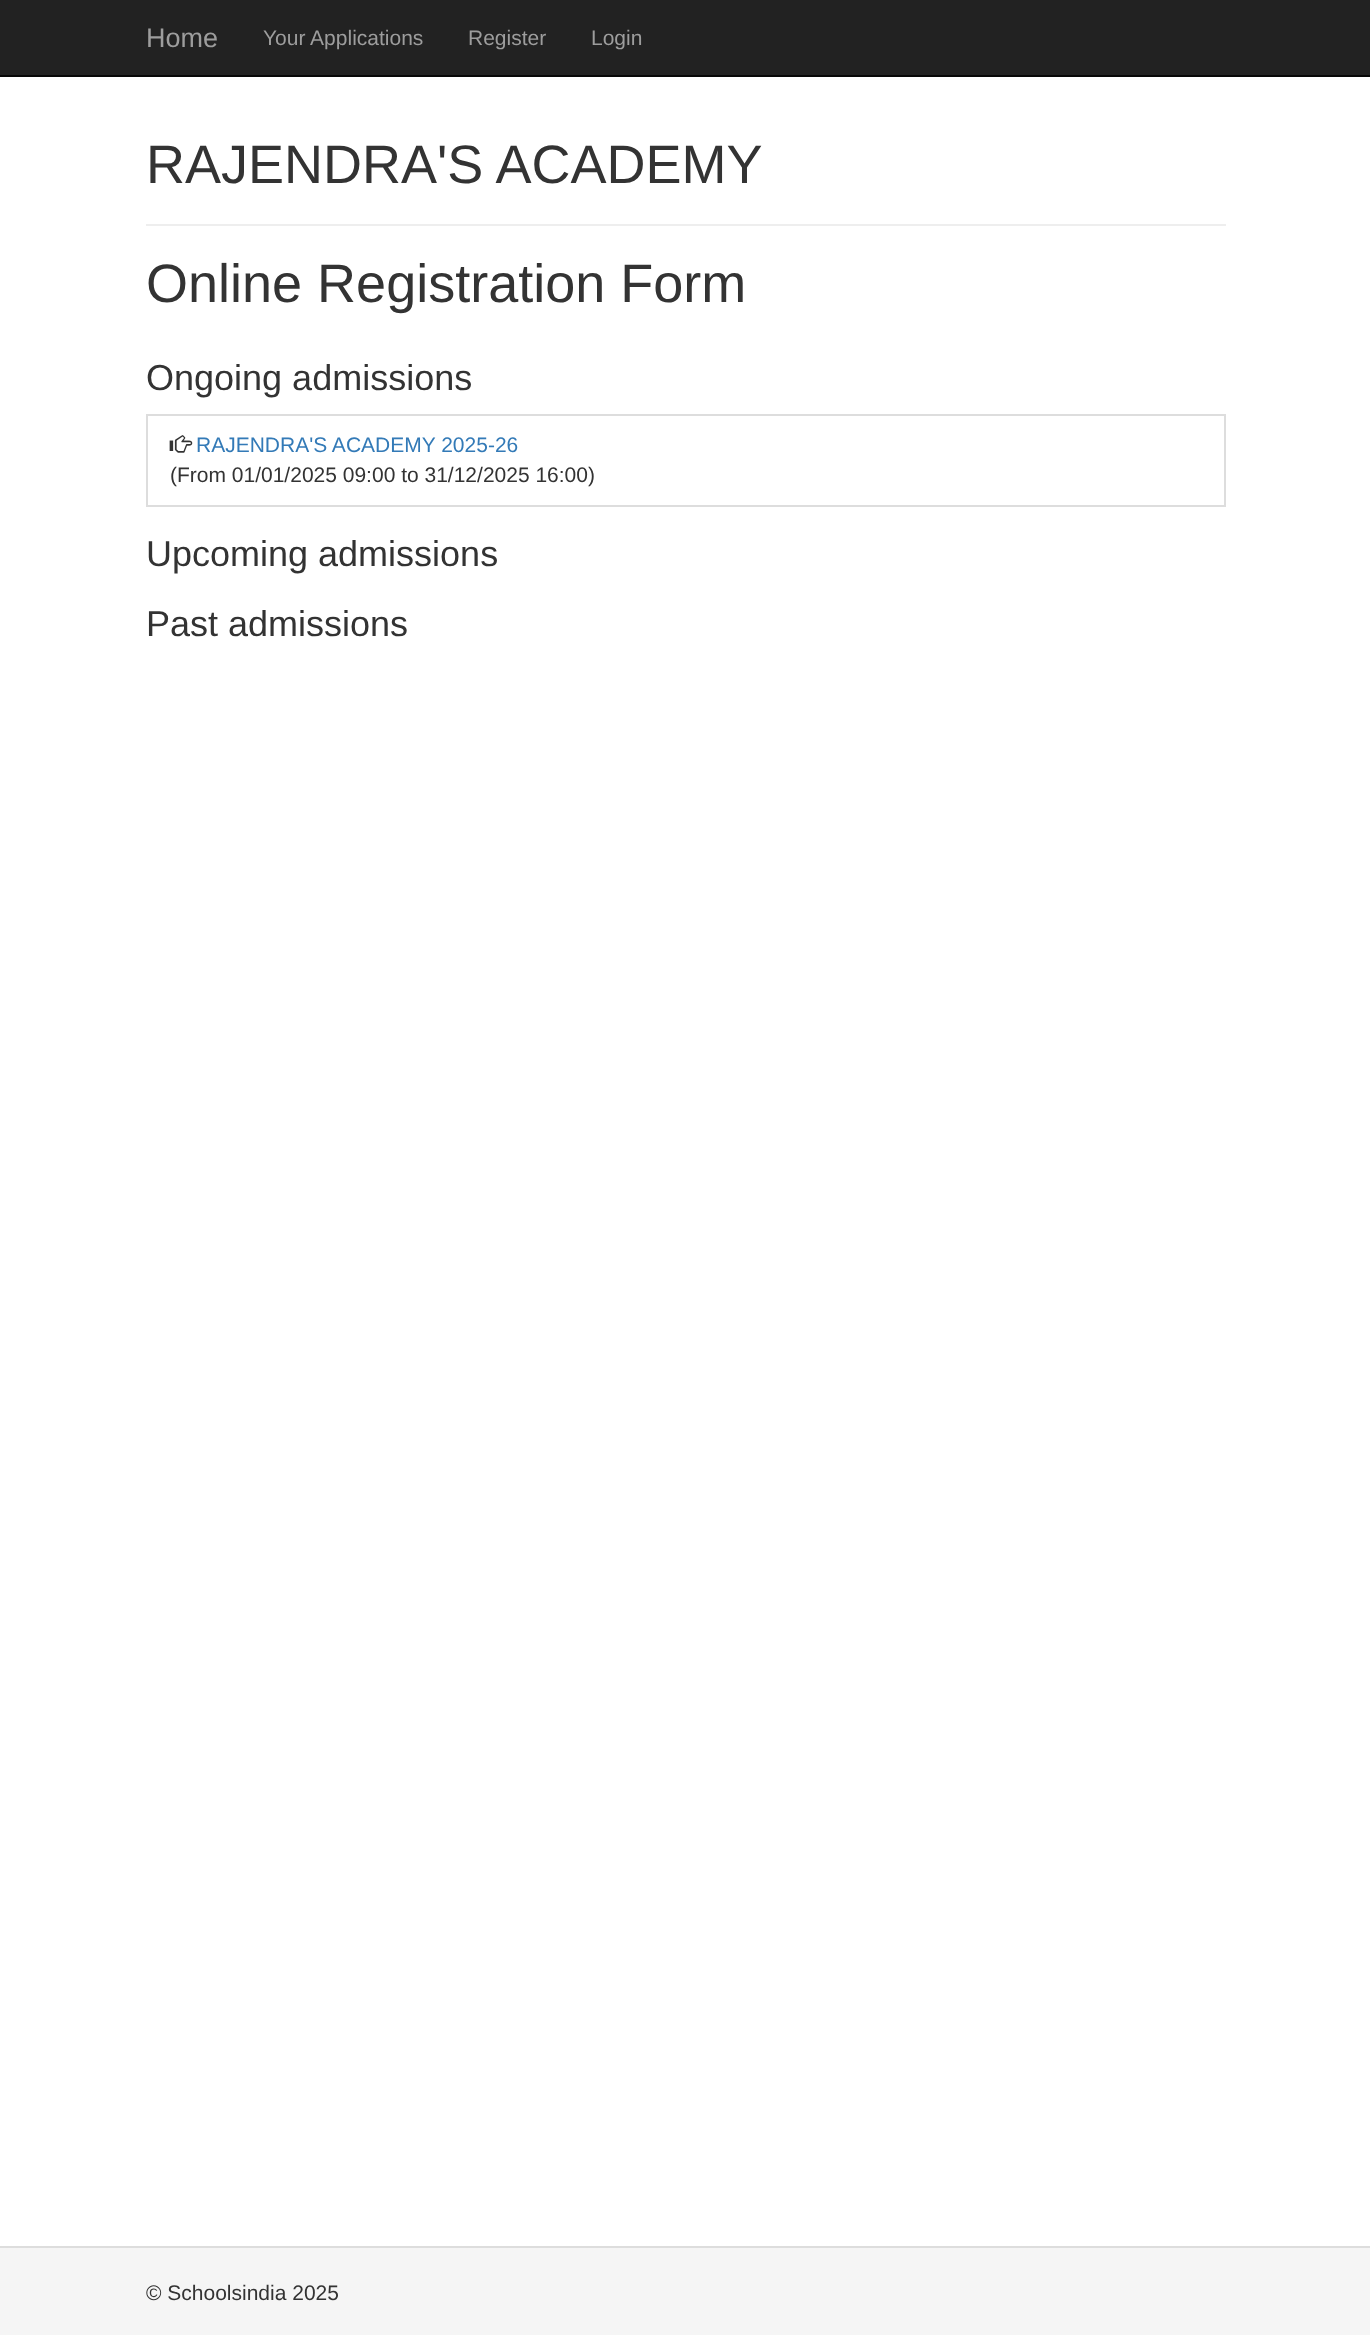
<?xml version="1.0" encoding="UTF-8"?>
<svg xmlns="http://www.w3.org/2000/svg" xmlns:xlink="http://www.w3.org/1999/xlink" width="1370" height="2335">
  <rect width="100%" height="100%" fill="#ffffff" />
  <rect width="1370" height="75" fill="#222222" />
  <rect y="75" width="1370" height="2" fill="#080808" />
  <rect x="146" y="224" width="1080" height="2" fill="#eeeeee" />
  <rect x="147" y="415" width="1078" height="91" fill="none" stroke="#dddddd" stroke-width="2" />
  <image x="169" y="435" width="24" height="18" xlink:href="image1.png" />
  <rect y="2248" width="1370" height="87" fill="#f5f5f5" />
  <rect y="2246" width="1370" height="2" fill="#dddddd" />
  <text x="146" y="47" style="font-family: Liberation Sans; font-size: 27px; fill: #9d9d9d">Home</text>
  <text x="263" y="45" style="font-family: Liberation Sans; font-size: 21px; fill: #9d9d9d">Your Applications</text>
  <text x="468" y="45" style="font-family: Liberation Sans; font-size: 21px; fill: #9d9d9d">Register</text>
  <text x="591" y="45" style="font-family: Liberation Sans; font-size: 21px; fill: #9d9d9d">Login</text>
  <text x="146" y="183" style="font-family: Liberation Sans; font-size: 54px; fill: #333333">RAJENDRA'S ACADEMY</text>
  <text x="146" y="302" style="font-family: Liberation Sans; font-size: 54px; fill: #333333">Online Registration Form</text>
  <text x="146" y="390" style="font-family: Liberation Sans; font-size: 36px; fill: #333333">Ongoing admissions</text>
  <text x="196" y="452" style="font-family: Liberation Sans; font-size: 21px; fill: #337ab7">RAJENDRA'S ACADEMY 2025-26</text>
  <text x="170" y="482" style="font-family: Liberation Sans; font-size: 21px; fill: #333333">(From 01/01/2025 09:00 to 31/12/2025 16:00)</text>
  <text x="146" y="566" style="font-family: Liberation Sans; font-size: 36px; fill: #333333">Upcoming admissions</text>
  <text x="146" y="636" style="font-family: Liberation Sans; font-size: 36px; fill: #333333">Past admissions</text>
  <text x="146" y="2300" style="font-family: Liberation Sans; font-size: 21px; fill: #333333">© Schoolsindia 2025</text>
</svg>
